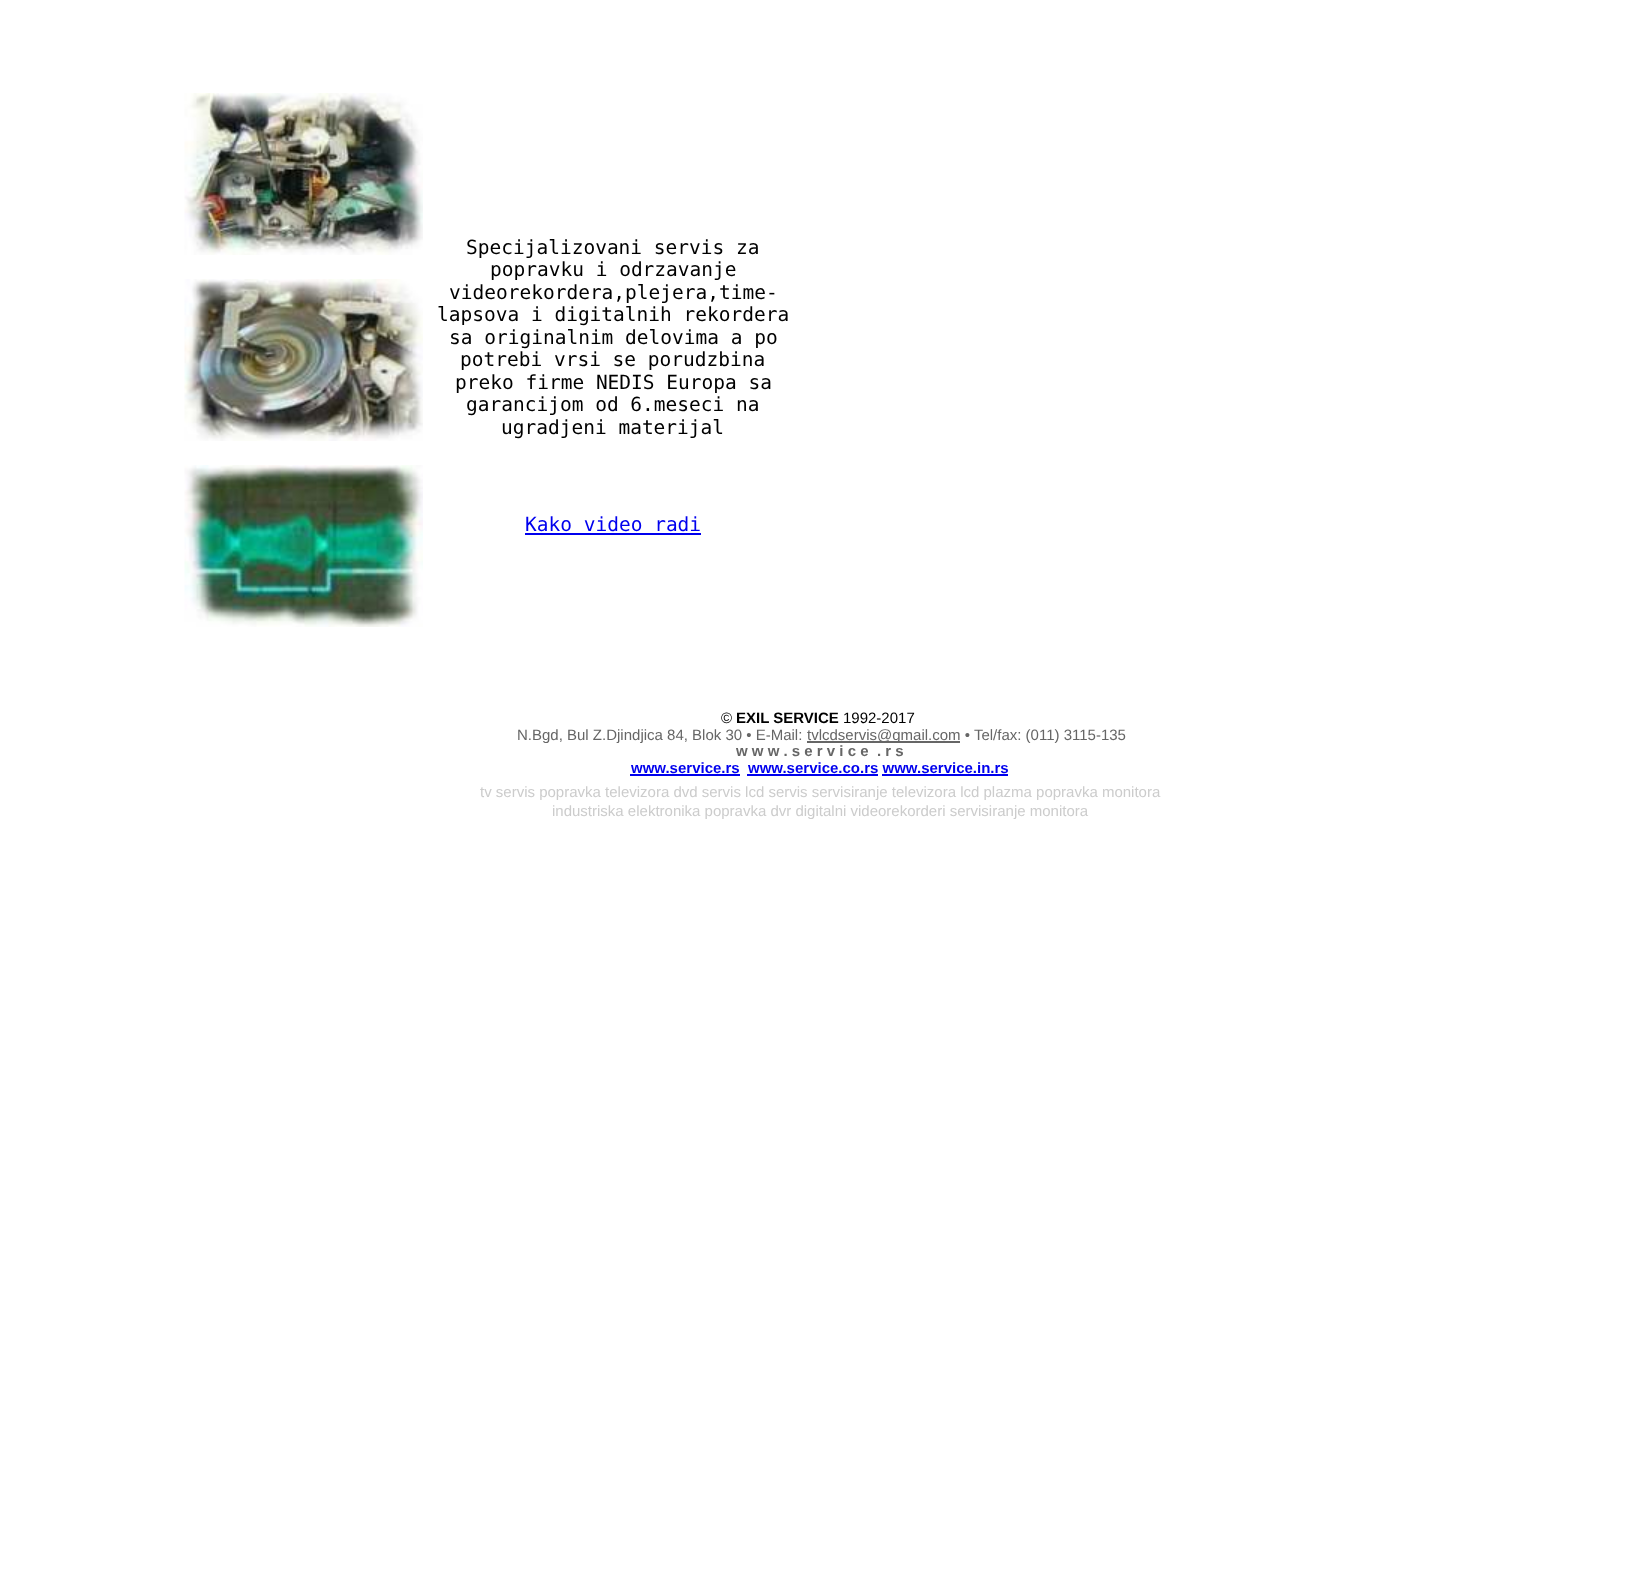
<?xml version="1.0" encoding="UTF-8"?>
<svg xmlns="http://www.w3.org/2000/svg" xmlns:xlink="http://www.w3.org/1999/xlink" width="1634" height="1584">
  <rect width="100%" height="100%" fill="#ffffff" />
  <image x="184" y="93" width="239" height="162" xlink:href="image1.png" />
  <image x="184" y="279" width="239" height="162" xlink:href="image2.png" />
  <image x="184" y="465" width="239" height="162" xlink:href="image3.png" />
  <rect x="525" y="533" width="176" height="2" fill="#0000ee" />
  <rect x="807" y="741" width="153" height="2" fill="#666666" />
  <rect x="630" y="774" width="110" height="2" fill="#0000ee" />
  <rect x="747" y="774" width="131" height="2" fill="#0000ee" />
  <rect x="882" y="774" width="126" height="2" fill="#0000ee" />
  <text x="466" y="254" style="font-family: DejaVu Sans Mono; font-size: 19.5px; fill: #000000">Specijalizovani servis za</text>
  <text x="490" y="276" style="font-family: DejaVu Sans Mono; font-size: 19.5px; fill: #000000">popravku i odrzavanje</text>
  <text x="449" y="299" style="font-family: DejaVu Sans Mono; font-size: 19.5px; fill: #000000">videorekordera,plejera,time-</text>
  <text x="437" y="321" style="font-family: DejaVu Sans Mono; font-size: 19.5px; fill: #000000">lapsova i digitalnih rekordera</text>
  <text x="449" y="344" style="font-family: DejaVu Sans Mono; font-size: 19.5px; fill: #000000">sa originalnim delovima a po</text>
  <text x="460" y="366" style="font-family: DejaVu Sans Mono; font-size: 19.5px; fill: #000000">potrebi vrsi se porudzbina</text>
  <text x="455" y="389" style="font-family: DejaVu Sans Mono; font-size: 19.5px; fill: #000000">preko firme NEDIS Europa sa</text>
  <text x="466" y="411" style="font-family: DejaVu Sans Mono; font-size: 19.5px; fill: #000000">garancijom od 6.meseci na</text>
  <text x="501" y="434" style="font-family: DejaVu Sans Mono; font-size: 19.5px; fill: #000000">ugradjeni materijal</text>
  <text x="525" y="531" style="font-family: DejaVu Sans Mono; font-size: 19.5px; fill: #0000ee">Kako video radi</text>
  <text x="721" y="723" style="font-family: Liberation Sans; font-size: 15px; fill: #000000">©</text>
  <text x="736" y="723" style="font-family: Liberation Sans; font-size: 15px; font-weight: bold; fill: #000000">EXIL SERVICE</text>
  <text x="843" y="723" style="font-family: Liberation Sans; font-size: 15px; fill: #000000">1992-2017</text>
  <text x="517" y="740" style="font-family: Liberation Sans; font-size: 15px; fill: #666666">N.Bgd, Bul Z.Djindjica 84, Blok 30 • E-Mail:</text>
  <text x="807" y="740" style="font-family: Liberation Sans; font-size: 15px; fill: #666666">tvlcdservis@gmail.com • Tel/fax: (011) 3115-135</text>
  <text x="736" y="756" style="font-family: Liberation Sans; font-size: 15px; font-weight: bold; fill: #666666" xml:space="preserve">w w w . s e r v i c e  . r s</text>
  <text x="631" y="773" style="font-family: Liberation Sans; font-size: 15px; font-weight: bold; fill: #0000ee">www.service.rs</text>
  <text x="748" y="773" style="font-family: Liberation Sans; font-size: 15px; font-weight: bold; fill: #0000ee">www.service.co.rs www.service.in.rs</text>
  <text x="480" y="797" style="font-family: Liberation Sans; font-size: 15px; fill: #cccccc">tv servis popravka televizora dvd servis lcd servis servisiranje televizora lcd plazma popravka monitora</text>
  <text x="552" y="816" style="font-family: Liberation Sans; font-size: 15px; fill: #cccccc">industriska elektronika popravka dvr digitalni videorekorderi servisiranje monitora</text>
</svg>
